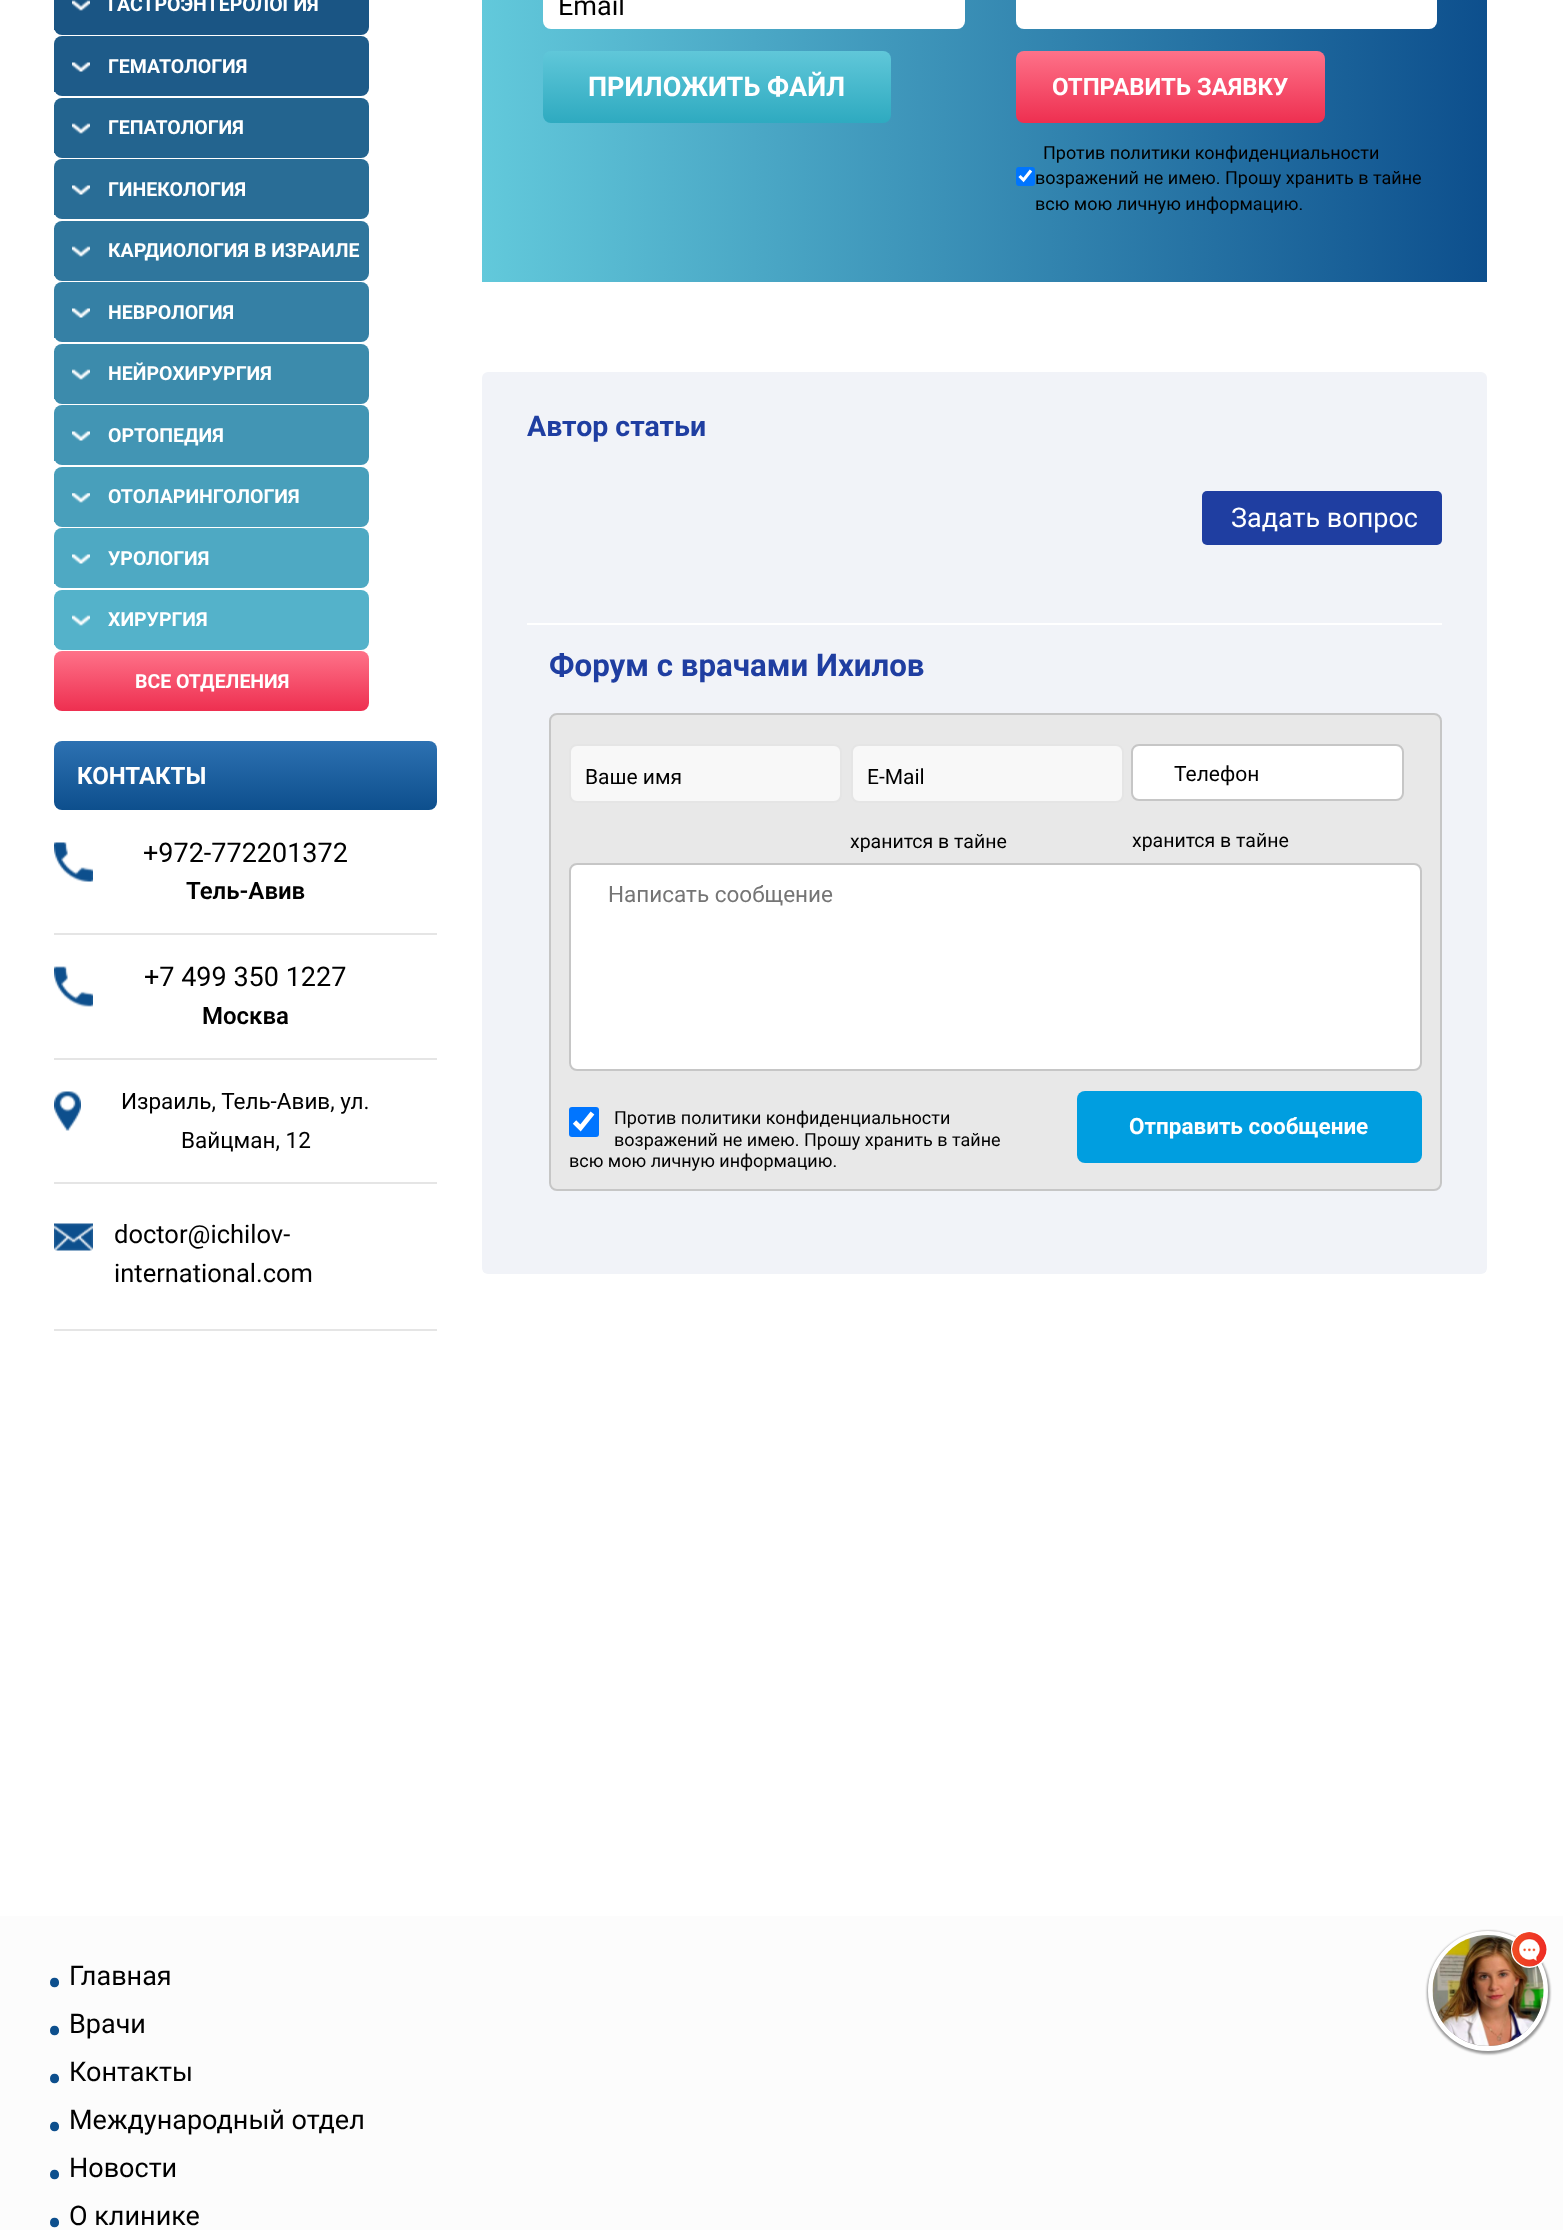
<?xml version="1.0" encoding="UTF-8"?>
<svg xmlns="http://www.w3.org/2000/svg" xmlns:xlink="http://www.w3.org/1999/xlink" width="1563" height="2230">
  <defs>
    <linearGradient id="g1" gradientUnits="userSpaceOnUse" x1="212" y1="711" x2="212" y2="651"><stop offset="0" stop-color="#ee2f50" /><stop offset="1" stop-color="#fe7289" /></linearGradient>
    <linearGradient id="g2" gradientUnits="userSpaceOnUse" x1="245" y1="810" x2="245" y2="741"><stop offset="0" stop-color="#0d4f8d" /><stop offset="1" stop-color="#2d71b2" /></linearGradient>
    <linearGradient id="g3" gradientUnits="userSpaceOnUse" x1="482" y1="-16" x2="1487" y2="-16"><stop offset="0" stop-color="#62c9db" /><stop offset="1" stop-color="#0d4f8d" /></linearGradient>
    <linearGradient id="g4" gradientUnits="userSpaceOnUse" x1="717" y1="123" x2="717" y2="51"><stop offset="0" stop-color="#2eaac0" /><stop offset="1" stop-color="#60c7d9" /></linearGradient>
    <linearGradient id="g5" gradientUnits="userSpaceOnUse" x1="1170" y1="123" x2="1170" y2="51"><stop offset="0" stop-color="#ee2f50" /><stop offset="1" stop-color="#fe7289" /></linearGradient>
  </defs>
  <rect width="100%" height="100%" fill="#ffffff" />
  <rect x="54" y="-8" width="315" height="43" rx="8" fill="#1a5584" />
  <rect x="54" y="27" width="1" height="3" fill="#1a5584" />
  <image x="72" y="0" width="18" height="11" xlink:href="image1.png" />
  <rect x="54" y="36" width="315" height="60" rx="8" fill="#1e5b89" />
  <rect x="54" y="88" width="2" height="4" fill="#1e5b89" />
  <image x="72" y="62" width="18" height="10" xlink:href="image2.png" />
  <rect x="54" y="98" width="315" height="60" rx="8" fill="#23648f" />
  <rect x="54" y="105" width="1" height="48" fill="#23648f" />
  <image x="72" y="123" width="18" height="11" xlink:href="image3.png" />
  <rect x="54" y="159" width="315" height="60" rx="8" fill="#296d96" />
  <rect x="54" y="211" width="1" height="4" fill="#296d96" />
  <image x="72" y="185" width="18" height="10" xlink:href="image4.png" />
  <rect x="54" y="221" width="315" height="60" rx="8" fill="#2f769d" />
  <rect x="54" y="228" width="1" height="48" fill="#2f769d" />
  <image x="72" y="246" width="18" height="11" xlink:href="image5.png" />
  <rect x="54" y="282" width="315" height="60" rx="8" fill="#3580a5" />
  <rect x="54" y="334" width="1" height="4" fill="#3580a5" />
  <image x="72" y="308" width="18" height="10" xlink:href="image6.png" />
  <rect x="54" y="344" width="315" height="60" rx="8" fill="#3c8bac" />
  <rect x="54" y="351" width="1" height="48" fill="#3c8bac" />
  <image x="72" y="369" width="18" height="11" xlink:href="image7.png" />
  <rect x="54" y="405" width="315" height="60" rx="8" fill="#4295b4" />
  <rect x="54" y="457" width="1" height="4" fill="#4295b4" />
  <image x="72" y="431" width="18" height="10" xlink:href="image8.png" />
  <rect x="54" y="467" width="315" height="60" rx="8" fill="#489fbb" />
  <rect x="54" y="474" width="1" height="48" fill="#489fbb" />
  <image x="72" y="493" width="18" height="10" xlink:href="image9.png" />
  <rect x="54" y="528" width="315" height="60" rx="8" fill="#4ea9c3" />
  <rect x="54" y="580" width="1" height="4" fill="#4ea9c3" />
  <image x="72" y="554" width="18" height="10" xlink:href="image10.png" />
  <rect x="54" y="590" width="315" height="60" rx="8" fill="#54b2ca" />
  <rect x="54" y="597" width="1" height="48" fill="#54b2ca" />
  <image x="72" y="615" width="18" height="11" xlink:href="image11.png" />
  <rect x="54" y="651" width="315" height="60" rx="8" fill="url(#g1)" />
  <rect x="54" y="741" width="383" height="69" rx="8" fill="url(#g2)" />
  <rect x="54" y="933" width="383" height="2" fill="#e5e5e5" />
  <image x="54" y="842" width="39" height="40" xlink:href="image12.png" />
  <rect x="54" y="1058" width="383" height="2" fill="#e5e5e5" />
  <image x="54" y="966" width="39" height="41" xlink:href="image13.png" />
  <rect x="54" y="1182" width="383" height="2" fill="#e5e5e5" />
  <image x="54" y="1091" width="27" height="40" xlink:href="image14.png" />
  <rect x="54" y="1329" width="383" height="2" fill="#e5e5e5" />
  <image x="54" y="1223" width="39" height="28" xlink:href="image15.png" />
  <rect x="482" width="1005" height="282" fill="url(#g3)" />
  <rect x="543" y="-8" width="422" height="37" rx="8" fill="#ffffff" />
  <rect x="543" y="51" width="348" height="72" rx="8" fill="url(#g4)" />
  <rect x="1016" y="-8" width="421" height="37" rx="8" fill="#ffffff" />
  <rect x="1016" y="51" width="309" height="72" rx="8" fill="url(#g5)" />
  <rect x="1016" y="167" width="19" height="19" rx="3" fill="#0075ff" />
  <path d="M 1019.5 176 l 4 4 l 7.5 -9.5" fill="none" stroke="#ffffff" stroke-width="3.1" />
  <rect x="482" y="372" width="1005" height="902" rx="6" fill="#f1f3f8" />
  <rect x="1202" y="491" width="240" height="54" rx="5" fill="#1f3ea1" />
  <rect x="527" y="623" width="915" height="2" fill="#ffffff" />
  <rect x="550" y="714" width="891" height="476" rx="7" fill="#e8e8e8" stroke="#c6c6c6" stroke-width="2" />
  <rect x="570" y="745" width="271" height="57" rx="7" fill="#f8f8f8" stroke="#e5e5e5" stroke-width="2" />
  <rect x="852" y="745" width="271" height="57" rx="7" fill="#f8f8f8" stroke="#e5e5e5" stroke-width="2" />
  <rect x="1132" y="745" width="271" height="55" rx="7" fill="#ffffff" stroke="#c6c6c6" stroke-width="2" />
  <rect x="570" y="864" width="851" height="206" rx="7" fill="#ffffff" stroke="#c6c6c6" stroke-width="2" />
  <rect x="569" y="1107" width="30" height="30" rx="3" fill="#0075ff" />
  <path d="M 574.5 1122 l 6 6 l 12 -15" fill="none" stroke="#ffffff" stroke-width="4.8" />
  <rect x="1077" y="1091" width="345" height="72" rx="8" fill="#009ee0" />
  <rect y="1916" width="1563" height="314" fill="#fcfcfc" />
  <rect x="1427" y="1931" width="123" height="123" rx="61.5" fill="#000000" fill-opacity="0.4" filter="blur(1px)" />
  <circle cx="1488" cy="1991" r="57.5" fill="none" stroke="#ffffff" stroke-width="5" />
  <image x="1432" y="1935" width="112" height="111" xlink:href="image16.png" />
  <circle cx="1529.5" cy="1949.5" r="17.5" fill="none" stroke="#ffffff" stroke-width="2" />
  <image x="1512" y="1932" width="35" height="35" xlink:href="image17.png" />
  <text x="108" y="11" style="font-family: Roboto; font-size: 19.5px; font-weight: bold; fill: #ffffff">ГАСТРОЭНТЕРОЛОГИЯ</text>
  <text x="108" y="73" style="font-family: Roboto; font-size: 19.5px; font-weight: bold; fill: #ffffff">ГЕМАТОЛОГИЯ</text>
  <text x="108" y="134" style="font-family: Roboto; font-size: 19.5px; font-weight: bold; fill: #ffffff">ГЕПАТОЛОГИЯ</text>
  <text x="108" y="196" style="font-family: Roboto; font-size: 19.5px; font-weight: bold; fill: #ffffff">ГИНЕКОЛОГИЯ</text>
  <text x="108" y="257" style="font-family: Roboto; font-size: 19.5px; font-weight: bold; fill: #ffffff">КАРДИОЛОГИЯ В ИЗРАИЛЕ</text>
  <text x="108" y="319" style="font-family: Roboto; font-size: 19.5px; font-weight: bold; fill: #ffffff">НЕВРОЛОГИЯ</text>
  <text x="108" y="380" style="font-family: Roboto; font-size: 19.5px; font-weight: bold; fill: #ffffff">НЕЙРОХИРУРГИЯ</text>
  <text x="108" y="442" style="font-family: Roboto; font-size: 19.5px; font-weight: bold; fill: #ffffff">ОРТОПЕДИЯ</text>
  <text x="108" y="503" style="font-family: Roboto; font-size: 19.5px; font-weight: bold; fill: #ffffff">ОТОЛАРИНГОЛОГИЯ</text>
  <text x="108" y="565" style="font-family: Roboto; font-size: 19.5px; font-weight: bold; fill: #ffffff">УРОЛОГИЯ</text>
  <text x="108" y="626" style="font-family: Roboto; font-size: 19.5px; font-weight: bold; fill: #ffffff">ХИРУРГИЯ</text>
  <text x="135" y="688" style="font-family: Roboto; font-size: 19.5px; font-weight: bold; fill: #ffffff">ВСЕ ОТДЕЛЕНИЯ</text>
  <text x="77" y="784" style="font-family: Roboto; font-size: 24px; font-weight: bold; fill: #ffffff">КОНТАКТЫ</text>
  <text x="143" y="862" style="font-family: Roboto; font-size: 27px; fill: #000000">+972-772201372</text>
  <text x="186" y="899" style="font-family: Roboto; font-size: 24px; font-weight: 600; fill: #000000">Тель-Авив</text>
  <text x="144" y="986" style="font-family: Roboto; font-size: 27px; fill: #000000">+7 499 350 1227</text>
  <text x="202" y="1024" style="font-family: Roboto; font-size: 24px; font-weight: 600; fill: #000000">Москва</text>
  <text x="121" y="1109" style="font-family: Roboto; font-size: 22.5px; fill: #000000">Израиль, Тель-Авив, ул.</text>
  <text x="181" y="1148" style="font-family: Roboto; font-size: 22.5px; fill: #000000">Вайцман, 12</text>
  <text x="114" y="1243" style="font-family: Roboto; font-size: 25.5px; fill: #000000">doctor@ichilov-</text>
  <text x="114" y="1282" style="font-family: Roboto; font-size: 25.5px; fill: #000000">international.com</text>
  <text x="558" y="15" style="font-family: Roboto; font-size: 27px; fill: #000000">Email</text>
  <text x="588" y="96" style="font-family: Roboto; font-size: 27px; font-weight: bold; fill: #ffffff">ПРИЛОЖИТЬ ФАЙЛ</text>
  <text x="1052" y="95" style="font-family: Roboto; font-size: 24px; font-weight: bold; fill: #ffffff">ОТПРАВИТЬ ЗАЯВКУ</text>
  <text x="1043" y="159" style="font-family: Roboto; font-size: 18px; fill: #000000">Против политики конфиденциальности</text>
  <text x="1035" y="184" style="font-family: Roboto; font-size: 18px; fill: #000000">возражений не имею. Прошу хранить в тайне</text>
  <text x="1035" y="210" style="font-family: Roboto; font-size: 18px; fill: #000000">всю мою личную информацию.</text>
  <text x="527" y="436" style="font-family: Roboto; font-size: 28.5px; font-weight: bold; fill: #1f3ea1">Автор статьи</text>
  <text x="1231" y="527" style="font-family: Roboto; font-size: 27px; fill: #ffffff">Задать вопрос</text>
  <text x="549" y="676" style="font-family: Roboto; font-size: 31.25px; font-weight: bold; fill: #1f3ea1">Форум с врачами Ихилов</text>
  <text x="585" y="784" style="font-family: Roboto; font-size: 21px; fill: #000000">Ваше имя</text>
  <text x="867" y="784" style="font-family: Roboto; font-size: 21px; fill: #000000">E-Mail</text>
  <text x="850" y="848" style="font-family: Roboto; font-size: 19.5px; fill: #000000">хранится в тайне</text>
  <text x="1174" y="781" style="font-family: Roboto; font-size: 21px; fill: #000000">Телефон</text>
  <text x="1132" y="847" style="font-family: Roboto; font-size: 19.5px; fill: #000000">хранится в тайне</text>
  <text x="608" y="902" style="font-family: Roboto; font-size: 22.5px; fill: #757575">Написать сообщение</text>
  <text x="614" y="1124" style="font-family: Roboto; font-size: 18px; fill: #000000">Против политики конфиденциальности</text>
  <text x="614" y="1146" style="font-family: Roboto; font-size: 18px; fill: #000000">возражений не имею. Прошу хранить в тайне</text>
  <text x="569" y="1167" style="font-family: Roboto; font-size: 18px; fill: #000000">всю мою личную информацию.</text>
  <text x="1129" y="1134" style="font-family: Roboto; font-size: 22.5px; font-weight: bold; fill: #ffffff">Отправить сообщение</text>
  <text x="47" y="1999" style="font-family: Roboto; font-size: 45px; fill: #0d4f8d">•</text>
  <text x="69" y="1985" style="font-family: Roboto; font-size: 27px; fill: #000000">Главная</text>
  <text x="47" y="2047" style="font-family: Roboto; font-size: 45px; fill: #0d4f8d">•</text>
  <text x="69" y="2033" style="font-family: Roboto; font-size: 27px; fill: #000000">Врачи</text>
  <text x="47" y="2095" style="font-family: Roboto; font-size: 45px; fill: #0d4f8d">•</text>
  <text x="69" y="2081" style="font-family: Roboto; font-size: 27px; fill: #000000">Контакты</text>
  <text x="47" y="2143" style="font-family: Roboto; font-size: 45px; fill: #0d4f8d">•</text>
  <text x="69" y="2129" style="font-family: Roboto; font-size: 27px; fill: #000000">Международный отдел</text>
  <text x="47" y="2191" style="font-family: Roboto; font-size: 45px; fill: #0d4f8d">•</text>
  <text x="69" y="2177" style="font-family: Roboto; font-size: 27px; fill: #000000">Новости</text>
  <text x="47" y="2239" style="font-family: Roboto; font-size: 45px; fill: #0d4f8d">•</text>
  <text x="69" y="2225" style="font-family: Roboto; font-size: 27px; fill: #000000">О клинике</text>
</svg>
